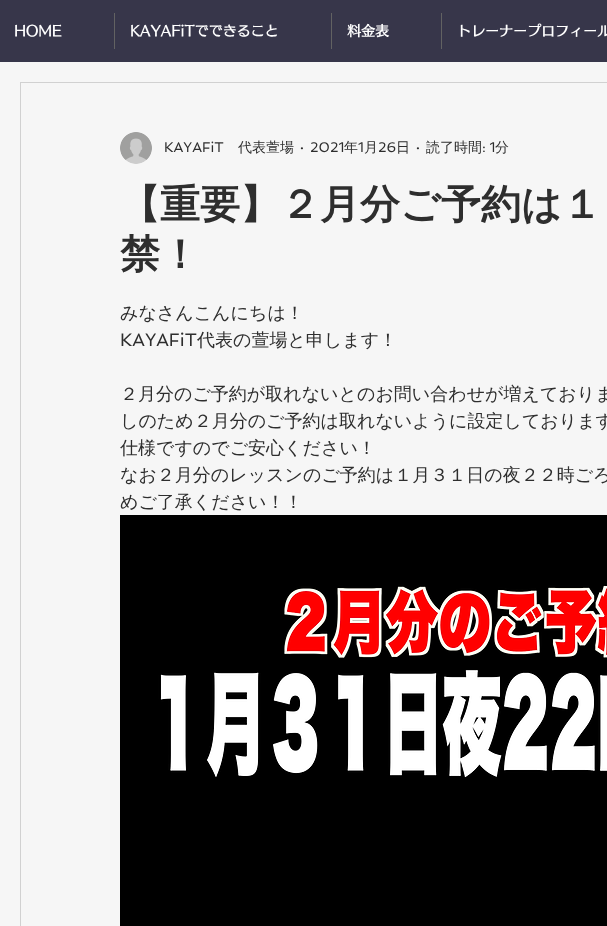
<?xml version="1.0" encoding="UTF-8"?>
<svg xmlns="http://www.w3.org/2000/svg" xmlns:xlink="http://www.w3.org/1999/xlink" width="607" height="926">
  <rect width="100%" height="100%" fill="#37364a" />
  <rect x="114" y="13" width="1" height="36" fill="#626262" />
  <rect x="331" y="13" width="1" height="36" fill="#626262" />
  <rect x="441" y="13" width="1" height="36" fill="#626262" />
  <rect y="62" width="607" height="864" fill="#f6f6f6" />
  <rect x="20.5" y="82.5" width="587" height="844" fill="none" stroke="#d1d1d1" />
  <image x="120" y="132" width="32" height="32" xlink:href="image1.png" />
  <image x="120" y="515" width="487" height="411" xlink:href="image2.png" />
  <text x="14" y="36" style="font-family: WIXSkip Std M; font-size: 14px; font-weight: bold; fill: #ffffff">HOME</text>
  <text x="130" y="36" style="font-family: WIXSkip Std M; font-size: 14px; font-weight: bold; fill: #ffffff">KAYAFiTでできること</text>
  <text x="347" y="36" style="font-family: WIXSkip Std M; font-size: 14px; font-weight: bold; fill: #ffffff">料金表</text>
  <text x="457" y="36" style="font-family: WIXSkip Std M; font-size: 14px; font-weight: bold; fill: #ffffff">トレーナープロフィール</text>
  <text x="164" y="152" style="font-family: Spinnaker; font-size: 14px; fill: #2e2e2e">KAYAFiT</text>
  <text x="238" y="152" style="font-family: WenQuanYi Zen Hei; font-size: 14px; font-weight: 500; fill: #2e2e2e">代表萱場</text>
  <text x="300" y="152" style="font-family: Spinnaker; font-size: 14px; fill: #2e2e2e">·</text>
  <text x="310" y="152" style="font-family: Spinnaker; font-size: 14px; fill: #2e2e2e">2021</text>
  <text x="344" y="152" style="font-family: WenQuanYi Zen Hei; font-size: 14px; font-weight: 500; fill: #2e2e2e">年</text>
  <text x="358" y="152" style="font-family: Spinnaker; font-size: 14px; fill: #2e2e2e">1</text>
  <text x="364" y="152" style="font-family: WenQuanYi Zen Hei; font-size: 14px; font-weight: 500; fill: #2e2e2e">月</text>
  <text x="378" y="152" style="font-family: Spinnaker; font-size: 14px; fill: #2e2e2e">26</text>
  <text x="396" y="152" style="font-family: WenQuanYi Zen Hei; font-size: 14px; font-weight: 500; fill: #2e2e2e">日</text>
  <text x="416" y="152" style="font-family: Spinnaker; font-size: 14px; fill: #2e2e2e">·</text>
  <text x="426" y="152" style="font-family: WenQuanYi Zen Hei; font-size: 14px; font-weight: 500; fill: #2e2e2e">読了時間</text>
  <text x="482" y="152" style="font-family: Spinnaker; font-size: 14px; fill: #2e2e2e">: 1</text>
  <text x="495" y="152" style="font-family: WenQuanYi Zen Hei; font-size: 14px; font-weight: 500; fill: #2e2e2e">分</text>
  <text x="120" y="218" style="font-family: WenQuanYi Zen Hei; font-size: 40px; font-weight: bold; fill: #2e2e2e">【重要】２月分ご予約は１</text>
  <text x="120" y="268" style="font-family: WenQuanYi Zen Hei; font-size: 40px; font-weight: bold; fill: #2e2e2e">禁！</text>
  <text x="120" y="319" style="font-family: WenQuanYi Zen Hei; font-size: 18px; font-weight: 500; fill: #2e2e2e">みなさんこんにちは！</text>
  <text x="120" y="346" style="font-family: Spinnaker; font-size: 18px; fill: #2e2e2e">KAYAFiT</text>
  <text x="197" y="346" style="font-family: WenQuanYi Zen Hei; font-size: 18px; font-weight: 500; fill: #2e2e2e">代表の萱場と申します！</text>
  <text x="120" y="400" style="font-family: WenQuanYi Zen Hei; font-size: 18px; font-weight: 500; fill: #2e2e2e">２月分のご予約が取れないとのお問い合わせが増えておりま</text>
  <text x="120" y="427" style="font-family: WenQuanYi Zen Hei; font-size: 18px; font-weight: 500; fill: #2e2e2e">しのため２月分のご予約は取れないように設定しております</text>
  <text x="120" y="454" style="font-family: WenQuanYi Zen Hei; font-size: 18px; font-weight: 500; fill: #2e2e2e">仕様ですのでご安心ください！</text>
  <text x="120" y="481" style="font-family: WenQuanYi Zen Hei; font-size: 18px; font-weight: 500; fill: #2e2e2e">なお２月分のレッスンのご予約は１月３１日の夜２２時ごろ</text>
  <text x="120" y="508" style="font-family: WenQuanYi Zen Hei; font-size: 18px; font-weight: 500; fill: #2e2e2e">めご了承ください！！</text>
</svg>
